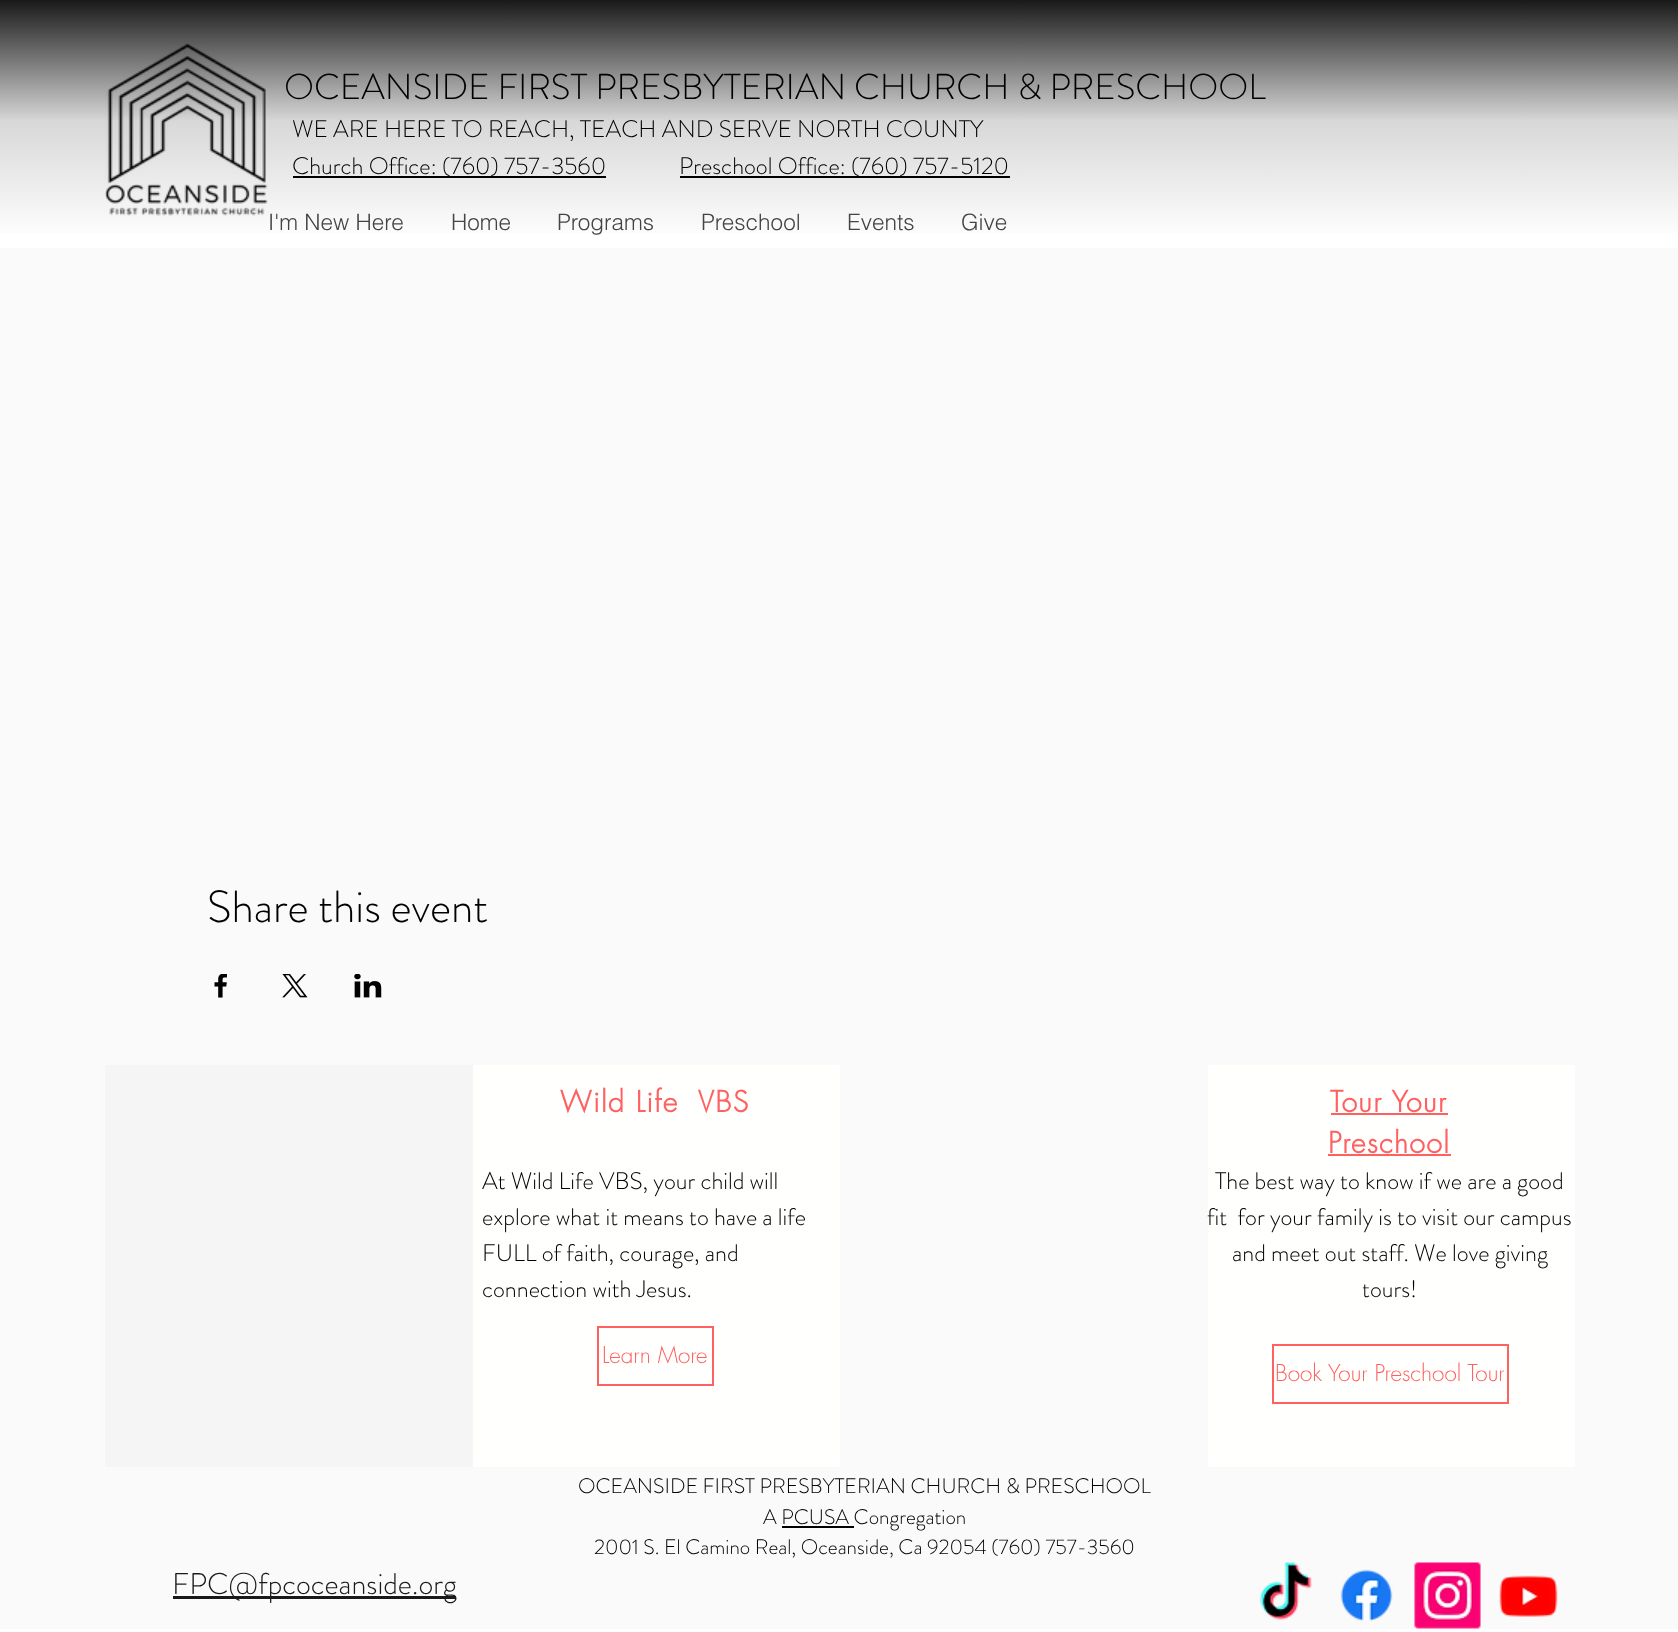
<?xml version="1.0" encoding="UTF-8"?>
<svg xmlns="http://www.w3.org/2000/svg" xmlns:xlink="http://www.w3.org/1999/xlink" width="1678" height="1632">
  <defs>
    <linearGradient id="g1" gradientUnits="userSpaceOnUse" x1="839" y1="248" x2="839" y2="0"><stop offset="0.03" stop-color="#ffffff" /><stop offset="0.51" stop-color="#d8d8d8" /><stop offset="1" stop-color="#191919" /></linearGradient>
  </defs>
  <rect width="100%" height="100%" fill="#ffffff" />
  <rect width="1678" height="233" fill="url(#g1)" />
  <image x="105" y="43" width="163" height="173" xlink:href="image1.png" />
  <rect x="293" y="176" width="313" height="2" fill="#000000" />
  <rect x="680" y="176" width="330" height="2" fill="#000000" />
  <rect y="248" width="1678" height="1381" fill="#fafafa" />
  <image x="214" y="974" width="13" height="24" xlink:href="image2.png" />
  <image x="282" y="974" width="26" height="24" xlink:href="image3.png" />
  <image x="354" y="974" width="28" height="24" xlink:href="image4.png" />
  <rect x="105" y="1065" width="368" height="402" fill="#f5f5f5" />
  <rect x="473" y="1065" width="367" height="402" fill="#fffffe" />
  <rect x="598" y="1327" width="115" height="58" fill="none" stroke="#ff6161" stroke-width="2" />
  <rect x="1208" y="1065" width="367" height="402" fill="#fffffe" />
  <rect x="1331" y="1113" width="117" height="2" fill="#ff6161" />
  <rect x="1328" y="1154" width="123" height="2" fill="#ff6161" />
  <rect x="1273" y="1345" width="235" height="58" fill="none" stroke="#ff6161" stroke-width="2" />
  <rect x="782" y="1526" width="72" height="2" fill="#000000" />
  <rect x="173" y="1596" width="283" height="3" fill="#191919" />
  <image x="1259" y="1562" width="53" height="58" xlink:href="image5.png" />
  <image x="1340" y="1569" width="53" height="53" xlink:href="image6.png" />
  <image x="1414" y="1562" width="67" height="67" xlink:href="image7.png" />
  <image x="1499" y="1575" width="59" height="42" xlink:href="image8.png" />
  <text x="284" y="99" style="font-family: 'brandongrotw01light'; font-size: 36px; font-weight: 300; fill: #000000">OCEANSIDE FIRST PRESBYTERIAN CHURCH &amp; PRESCHOOL</text>
  <text x="292" y="137" style="font-family: 'brandongrotw01light'; font-size: 24px; font-weight: 300; fill: #000000">WE ARE HERE TO REACH, TEACH AND SERVE NORTH COUNTY</text>
  <text x="292" y="174" style="font-family: 'brandongrotw01light'; font-size: 24px; font-weight: 300; fill: #000000">Church Office: (760) 757-3560</text>
  <text x="679" y="174" style="font-family: 'brandongrotw01light'; font-size: 24px; font-weight: 300; fill: #000000">Preschool Office: (760) 757-5120</text>
  <text x="268" y="230" style="font-family: helvetica; font-size: 22.5px; font-weight: 300; fill: #444444">I'm New Here</text>
  <text x="451" y="230" style="font-family: helvetica; font-size: 22.5px; font-weight: 300; fill: #444444">Home</text>
  <text x="557" y="230" style="font-family: helvetica; font-size: 22.5px; font-weight: 300; fill: #444444">Programs</text>
  <text x="701" y="230" style="font-family: helvetica; font-size: 22.5px; font-weight: 300; fill: #444444">Preschool</text>
  <text x="847" y="230" style="font-family: helvetica; font-size: 22.5px; font-weight: 300; fill: #444444">Events</text>
  <text x="961" y="230" style="font-family: helvetica; font-size: 22.5px; font-weight: 300; fill: #444444">Give</text>
  <text x="207" y="922" style="font-family: 'brandongrotw01light'; font-size: 45px; font-weight: 300; fill: #000000">Share this event</text>
  <text x="560" y="1112" style="font-family: futura; font-size: 28.5px; font-weight: bold; letter-spacing: 1.4px; fill: #ff6161" xml:space="preserve">Wild Life  VBS</text>
  <text x="482" y="1189" style="font-family: 'brandongrotw01light'; font-size: 24px; font-weight: 300; fill: #000000">At Wild Life VBS, your child will</text>
  <text x="482" y="1225" style="font-family: 'brandongrotw01light'; font-size: 24px; font-weight: 300; fill: #000000">explore what it means to have a life</text>
  <text x="482" y="1261" style="font-family: 'brandongrotw01light'; font-size: 24px; font-weight: 300; fill: #000000">FULL of faith, courage, and</text>
  <text x="482" y="1297" style="font-family: 'brandongrotw01light'; font-size: 24px; font-weight: 300; fill: #000000">connection with Jesus.</text>
  <text x="602" y="1363" style="font-family: futura; font-size: 22.5px; font-weight: 300; fill: #ff6161">Learn More</text>
  <text x="1330" y="1112" style="font-family: futura; font-size: 28.5px; font-weight: bold; letter-spacing: 1.4px; fill: #ff6161">Tour Your</text>
  <text x="1328" y="1153" style="font-family: futura; font-size: 28.5px; font-weight: bold; letter-spacing: 1.4px; fill: #ff6161">Preschool</text>
  <text x="1215" y="1189" style="font-family: 'brandongrotw01light'; font-size: 24px; font-weight: 300; fill: #000000">The best way to know if we are a good</text>
  <text x="1207" y="1225" style="font-family: 'brandongrotw01light'; font-size: 24px; font-weight: 300; fill: #000000" xml:space="preserve">fit  for your family is to visit our campus</text>
  <text x="1232" y="1261" style="font-family: 'brandongrotw01light'; font-size: 24px; font-weight: 300; fill: #000000">and meet out staff. We love giving</text>
  <text x="1362" y="1297" style="font-family: 'brandongrotw01light'; font-size: 24px; font-weight: 300; fill: #000000">tours!</text>
  <text x="1275" y="1381" style="font-family: futura; font-size: 22.5px; font-weight: 300; fill: #ff6161">Book Your Preschool Tour</text>
  <text x="578" y="1493" style="font-family: 'brandongrotw01light'; font-size: 21px; font-weight: 300; fill: #000000">OCEANSIDE FIRST PRESBYTERIAN CHURCH &amp; PRESCHOOL</text>
  <text x="763" y="1524" style="font-family: 'brandongrotw01light'; font-size: 21px; font-weight: 300; fill: #000000">A PCUSA Congregation</text>
  <text x="594" y="1554" style="font-family: 'brandongrotw01light'; font-size: 21px; font-weight: 300; fill: #000000">2001 S. El Camino Real, Oceanside, Ca 92054 (760) 757-3560</text>
  <text x="172" y="1594" style="font-family: 'brandongrotw01light'; font-size: 30px; font-weight: 300; fill: #191919">FPC@fpcoceanside.org</text>
</svg>
